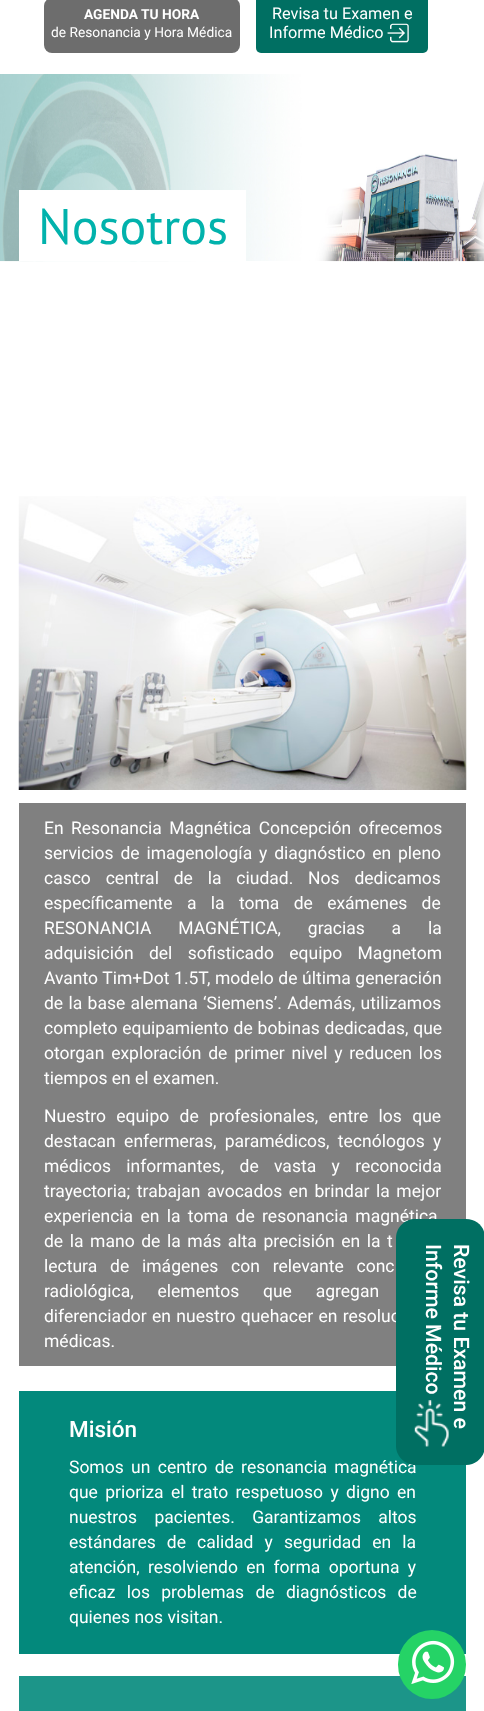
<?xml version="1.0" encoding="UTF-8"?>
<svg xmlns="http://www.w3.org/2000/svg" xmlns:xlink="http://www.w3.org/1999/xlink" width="484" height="1711">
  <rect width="100%" height="100%" fill="#ffffff" />
  <rect x="44" y="-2" width="196" height="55" rx="8" fill="#6d6d6d" />
  <rect x="256" y="-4" width="172" height="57" rx="5" fill="#006f62" />
  <image x="387" y="23" width="22" height="20" xlink:href="image1.png" />
  <image x="0" y="74" width="484" height="188" xlink:href="image2.png" />
  <rect x="19" y="190" width="227" height="71" fill="#ffffff" />
  <image x="18" y="496" width="449" height="294" xlink:href="image3.png" />
  <rect x="19" y="803" width="447" height="563" fill="#808080" />
  <rect x="19" y="1391" width="447" height="263" fill="#03897c" />
  <rect x="19" y="1676" width="447" height="35" fill="#1c9589" />
  <rect x="398" y="1630" width="68" height="69" rx="34" fill="#25d366" />
  <image x="411" y="1640" width="44" height="44" xlink:href="image5.png" />
  <text x="84" y="19" style="font-family: Roboto; font-size: 13.75px; font-weight: bold; fill: #ffffff">AGENDA TU HORA</text>
  <text x="51" y="37" style="font-family: Roboto; font-size: 13.75px; fill: #ffffff">de Resonancia y Hora Médica</text>
  <text x="272" y="19" style="font-family: Roboto; font-size: 16.25px; fill: #ffffff">Revisa tu Examen e</text>
  <text x="269" y="38" style="font-family: Roboto; font-size: 16.25px; fill: #ffffff">Informe Médico</text>
  <text x="38" y="244" style="font-family: PT Sans; font-size: 50px; fill: #01b2ac">Nosotros</text>
  <text x="44" y="834" word-spacing="3" style="font-family: Roboto; font-size: 17.5px; fill: #ffffff">En Resonancia Magnética Concepción ofrecemos</text>
  <text x="44" y="859" word-spacing="2.5" style="font-family: Roboto; font-size: 17.5px; fill: #ffffff">servicios de imagenología y diagnóstico en pleno</text>
  <text x="44" y="884" word-spacing="10.5" style="font-family: Roboto; font-size: 17.5px; fill: #ffffff">casco central de la ciudad. Nos dedicamos</text>
  <text x="44" y="909" word-spacing="10" style="font-family: Roboto; font-size: 17.5px; fill: #ffffff">específicamente a la toma de exámenes de</text>
  <text x="44" y="934" word-spacing="22.5" style="font-family: Roboto; font-size: 17.5px; fill: #ffffff">RESONANCIA MAGNÉTICA, gracias a la</text>
  <text x="44" y="959" word-spacing="11" style="font-family: Roboto; font-size: 17.5px; fill: #ffffff">adquisición del sofisticado equipo Magnetom</text>
  <text x="44" y="984" word-spacing="0.25" style="font-family: Roboto; font-size: 17.5px; fill: #ffffff">Avanto Tim+Dot 1.5T, modelo de última generación</text>
  <text x="44" y="1009" word-spacing="1" style="font-family: Roboto; font-size: 17.5px; fill: #ffffff">de la base alemana ‘Siemens’. Además, utilizamos</text>
  <text x="44" y="1034" word-spacing="0.5" style="font-family: Roboto; font-size: 17.5px; fill: #ffffff">completo equipamiento de bobinas dedicadas, que</text>
  <text x="44" y="1059" word-spacing="2.5" style="font-family: Roboto; font-size: 17.5px; fill: #ffffff">otorgan exploración de primer nivel y reducen los</text>
  <text x="44" y="1084" style="font-family: Roboto; font-size: 17.5px; fill: #ffffff">tiempos en el examen.</text>
  <text x="44" y="1122" word-spacing="6" style="font-family: Roboto; font-size: 17.5px; fill: #ffffff">Nuestro equipo de profesionales, entre los que</text>
  <text x="44" y="1147" word-spacing="4" style="font-family: Roboto; font-size: 17.5px; fill: #ffffff">destacan enfermeras, paramédicos, tecnólogos y</text>
  <text x="44" y="1172" word-spacing="11" style="font-family: Roboto; font-size: 17.5px; fill: #ffffff">médicos informantes, de vasta y reconocida</text>
  <text x="44" y="1197" word-spacing="2.25" style="font-family: Roboto; font-size: 17.5px; fill: #ffffff">trayectoria; trabajan avocados en brindar la mejor</text>
  <text x="44" y="1222" word-spacing="3" style="font-family: Roboto; font-size: 17.5px; fill: #ffffff">experiencia en la toma de resonancia magnética</text>
  <text x="44" y="1247" word-spacing="2.25" style="font-family: Roboto; font-size: 17.5px; fill: #ffffff">de la mano de la más alta precisión en la t</text>
  <text x="44" y="1272" word-spacing="8.5" style="font-family: Roboto; font-size: 17.5px; fill: #ffffff">lectura de imágenes con relevante conc</text>
  <text x="44" y="1297" word-spacing="19.5" style="font-family: Roboto; font-size: 17.5px; fill: #ffffff">radiológica, elementos que agregan</text>
  <text x="44" y="1322" word-spacing="1" style="font-family: Roboto; font-size: 17.5px; fill: #ffffff">diferenciador en nuestro quehacer en resoluc</text>
  <text x="44" y="1347" style="font-family: Roboto; font-size: 17.5px; fill: #ffffff">médicas.</text>
  <text x="69" y="1437" style="font-family: Roboto; font-size: 22.5px; font-weight: 500; fill: #ffffff">Misión</text>
  <text x="69" y="1473" word-spacing="3" style="font-family: Roboto; font-size: 17.5px; fill: #ffffff">Somos un centro de resonancia magnética</text>
  <text x="69" y="1498" word-spacing="3" style="font-family: Roboto; font-size: 17.5px; fill: #ffffff">que prioriza el trato respetuoso y digno en</text>
  <text x="69" y="1523" word-spacing="13" style="font-family: Roboto; font-size: 17.5px; fill: #ffffff">nuestros pacientes. Garantizamos altos</text>
  <text x="69" y="1548" word-spacing="6.75" style="font-family: Roboto; font-size: 17.5px; fill: #ffffff">estándares de calidad y seguridad en la</text>
  <text x="69" y="1573" word-spacing="4" style="font-family: Roboto; font-size: 17.5px; fill: #ffffff">atención, resolviendo en forma oportuna y</text>
  <text x="69" y="1598" word-spacing="7" style="font-family: Roboto; font-size: 17.5px; fill: #ffffff">eficaz los problemas de diagnósticos de</text>
  <text x="69" y="1623" style="font-family: Roboto; font-size: 17.5px; fill: #ffffff">quienes nos visitan.</text>
  <path d="M 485 1238 v 208 c 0 10 -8 19 -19 19 h -51 c -10 0 -19 -9 -19 -19 v -208 c 0 -11 9 -19 19 -19 h 51 c 11 0 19 8 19 19 z" fill="#006f62" />
  <text x="426" y="1244" transform="rotate(90 426 1244)" style="font-family: Roboto; font-size: 21.25px; font-weight: 500; fill: #ffffff">Informe Médico</text>
  <text x="454" y="1244" transform="rotate(90 454 1244)" style="font-family: Roboto; font-size: 21.25px; font-weight: 500; fill: #ffffff">Revisa tu Examen e</text>
  <image x="414" y="1400" width="35" height="47" xlink:href="image4.png" />
</svg>
